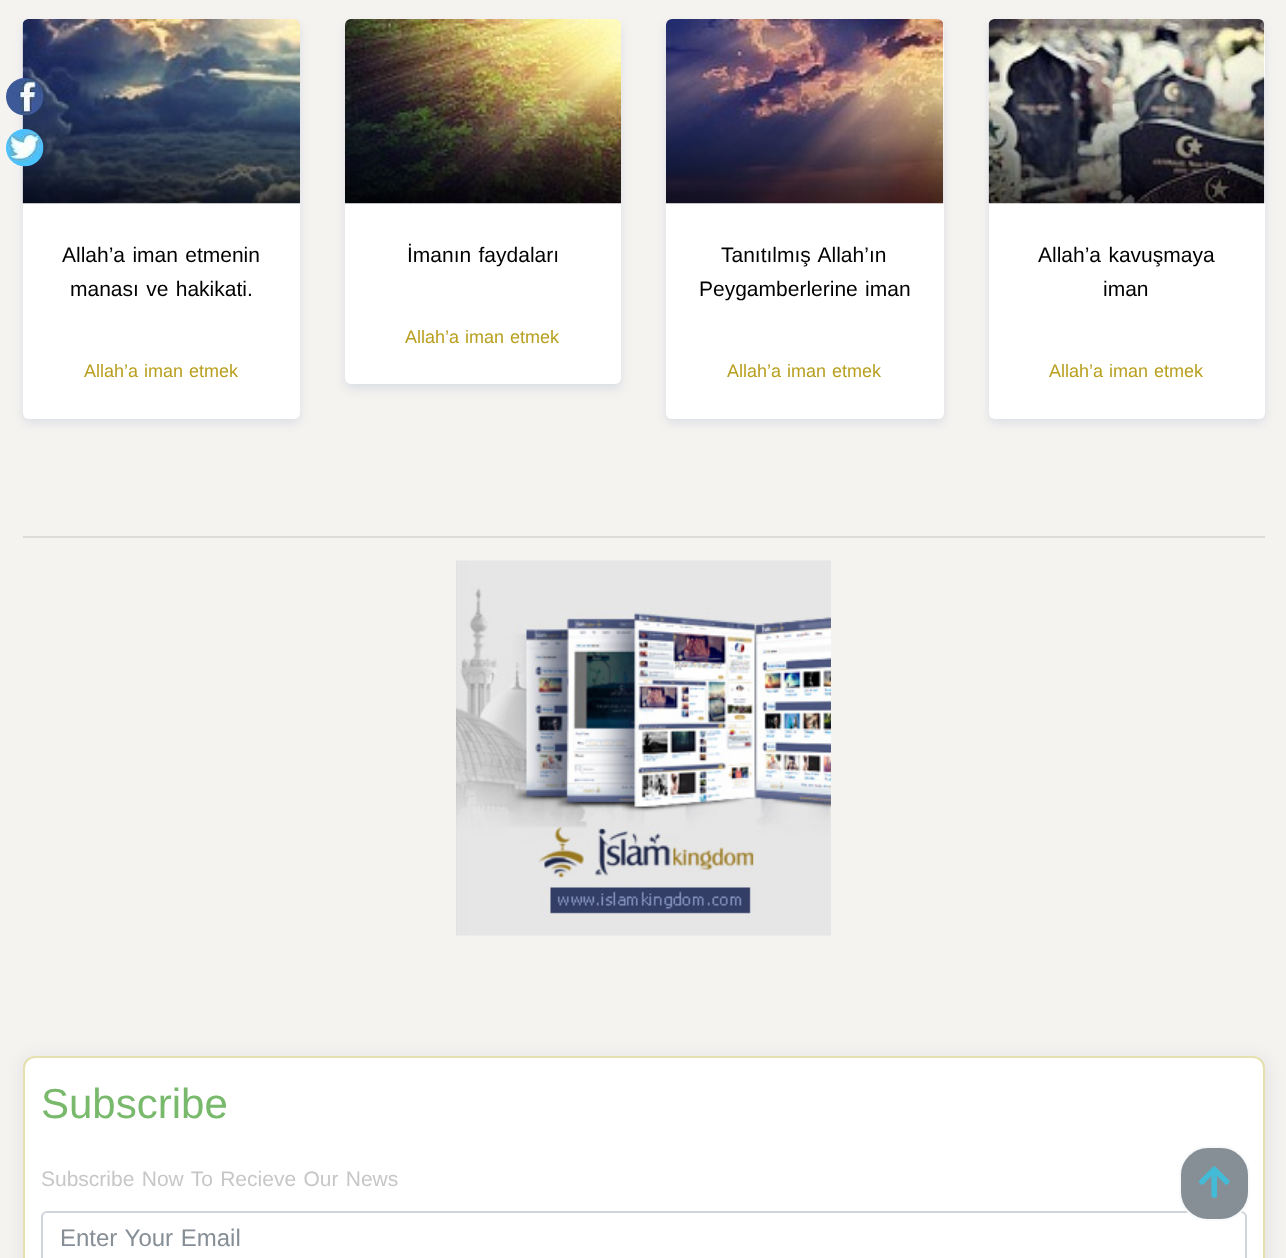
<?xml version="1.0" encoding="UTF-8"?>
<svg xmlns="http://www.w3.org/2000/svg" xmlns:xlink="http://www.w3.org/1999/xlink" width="1286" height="1258">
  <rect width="100%" height="100%" fill="#f5f3f0" />
  <rect x="23" y="24" width="277" height="399" rx="6" fill="#dbdee4" filter="blur(5px)" />
  <rect x="23" y="20" width="277" height="399" rx="6" fill="#ffffff" />
  <image x="22" y="19" width="278" height="185" xlink:href="image3.png" />
  <image x="6" y="78" width="38" height="38" xlink:href="image1.png" />
  <image x="6" y="129" width="38" height="38" xlink:href="image2.png" />
  <rect x="345" y="24" width="276" height="365" rx="6" fill="#dbdee4" filter="blur(5px)" />
  <rect x="345" y="20" width="276" height="364" rx="6" fill="#ffffff" />
  <image x="345" y="19" width="276" height="185" xlink:href="image4.png" />
  <rect x="666" y="24" width="278" height="399" rx="6" fill="#dbdee4" filter="blur(5px)" />
  <rect x="666" y="20" width="278" height="399" rx="6" fill="#ffffff" />
  <image x="666" y="19" width="278" height="185" xlink:href="image5.png" />
  <rect x="989" y="24" width="276" height="399" rx="6" fill="#dbdee4" filter="blur(5px)" />
  <rect x="989" y="20" width="276" height="399" rx="6" fill="#ffffff" />
  <image x="988" y="19" width="277" height="185" xlink:href="image6.png" />
  <rect x="23" y="536" width="1242" height="2" fill="#dddbd8" />
  <image x="456" y="560" width="375" height="376" xlink:href="image7.png" />
  <rect x="21" y="1056" width="1248" height="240" rx="15" fill="#e4e4e4" filter="blur(7.5px)" />
  <rect x="24" y="1057" width="1240" height="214" rx="11" fill="#ffffff" stroke="#e6dfae" stroke-width="2" />
  <rect x="42" y="1212" width="1204" height="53" rx="5" fill="none" stroke="#ced4da" stroke-width="2" />
  <rect x="1180" y="1147" width="69" height="73" rx="28" fill="#868e96" stroke="#f8f9fa" stroke-width="2" />
  <image x="1199" y="1166" width="31" height="32" xlink:href="image8.png" />
  <text x="62" y="262" word-spacing="1.5" style="font-family: Liberation Sans; font-size: 21px; fill: #000000">Allah’a iman etmenin</text>
  <text x="70" y="296" word-spacing="1.5" style="font-family: Liberation Sans; font-size: 21px; fill: #000000">manası ve hakikati.</text>
  <text x="84" y="377" word-spacing="1" style="font-family: Liberation Sans; font-size: 18px; fill: #b9a021">Allah’a iman etmek</text>
  <text x="407" y="262" word-spacing="1.5" style="font-family: Liberation Sans; font-size: 21px; fill: #000000">İmanın faydaları</text>
  <text x="405" y="343" word-spacing="1" style="font-family: Liberation Sans; font-size: 18px; fill: #b9a021">Allah’a iman etmek</text>
  <text x="721" y="262" word-spacing="2" style="font-family: Liberation Sans; font-size: 21px; fill: #000000">Tanıtılmış Allah’ın</text>
  <text x="699" y="296" word-spacing="1.5" style="font-family: Liberation Sans; font-size: 21px; fill: #000000">Peygamberlerine iman</text>
  <text x="727" y="377" word-spacing="1" style="font-family: Liberation Sans; font-size: 18px; fill: #b9a021">Allah’a iman etmek</text>
  <text x="1038" y="262" word-spacing="1.5" style="font-family: Liberation Sans; font-size: 21px; fill: #000000">Allah’a kavuşmaya</text>
  <text x="1103" y="296" style="font-family: Liberation Sans; font-size: 21px; fill: #000000">iman</text>
  <text x="1049" y="377" word-spacing="1" style="font-family: Liberation Sans; font-size: 18px; fill: #b9a021">Allah’a iman etmek</text>
  <text x="41" y="1118" style="font-family: Liberation Sans; font-size: 42px; fill: #78b96c">Subscribe</text>
  <text x="41" y="1186" word-spacing="1.5" style="font-family: Liberation Sans; font-size: 21px; fill: #c7c7c7">Subscribe Now To Recieve Our News</text>
  <text x="60" y="1246" word-spacing="1" style="font-family: Liberation Sans; font-size: 24px; fill: #868e96">Enter Your Email</text>
</svg>
